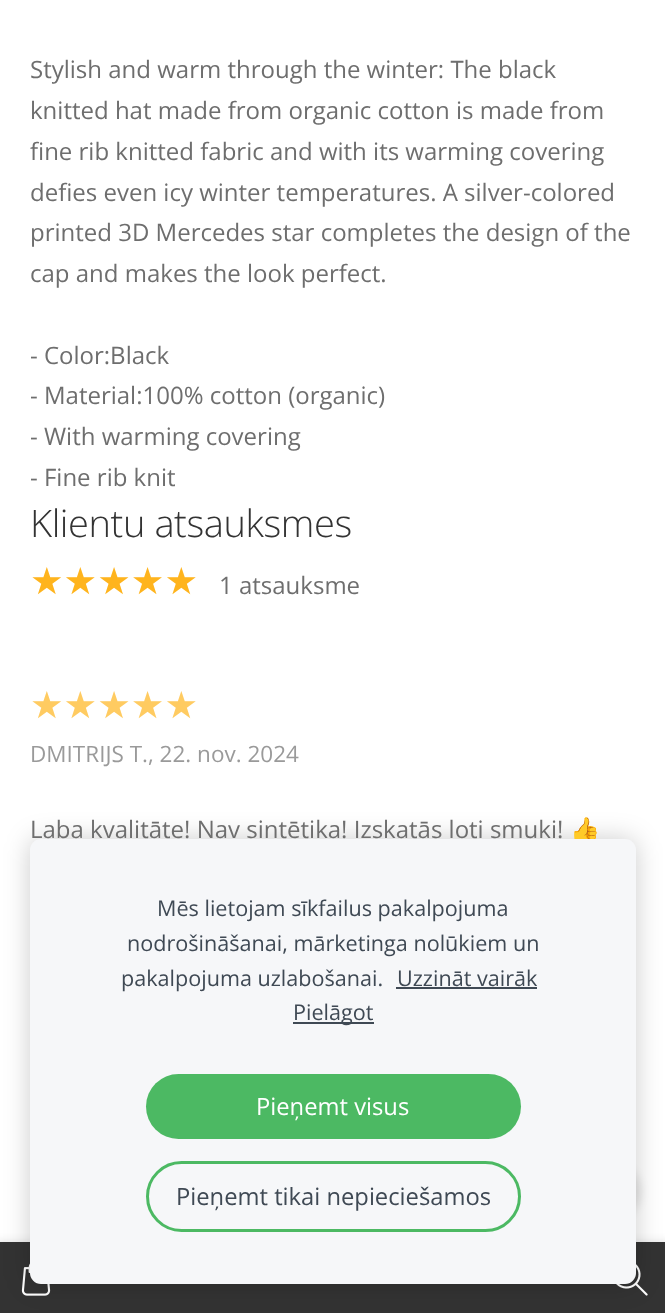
<?xml version="1.0" encoding="UTF-8"?>
<svg xmlns="http://www.w3.org/2000/svg" xmlns:xlink="http://www.w3.org/1999/xlink" width="665" height="1313">
  <rect width="100%" height="100%" fill="#ffffff" />
  <rect x="-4" y="1241" width="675" height="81" fill="#000000" fill-opacity="0.1" filter="blur(4px)" />
  <rect y="1242" width="665" height="71" fill="#333333" />
  <image x="21" y="1263" width="30" height="33" xlink:href="image1.png" />
  <image x="616" y="1264" width="32" height="32" xlink:href="image2.png" />
  <rect x="30" y="839" width="606" height="445" rx="11" fill="#000000" fill-opacity="0.2" filter="blur(13px)" />
  <rect x="584" y="1163" width="57" height="57" rx="28.5" fill="#000000" fill-opacity="0.1" filter="blur(4px)" />
  <text x="30" y="78" style="font-family: Open Sans; font-size: 24px; fill: #6e6e6e">Stylish and warm through the winter: The black</text>
  <text x="30" y="119" style="font-family: Open Sans; font-size: 24px; fill: #6e6e6e">knitted hat made from organic cotton is made from</text>
  <text x="30" y="160" style="font-family: Open Sans; font-size: 24px; fill: #6e6e6e">fine rib knitted fabric and with its warming covering</text>
  <text x="30" y="201" style="font-family: Open Sans; font-size: 24px; fill: #6e6e6e">defies even icy winter temperatures. A silver-colored</text>
  <text x="30" y="241" style="font-family: Open Sans; font-size: 24px; fill: #6e6e6e">printed 3D Mercedes star completes the design of the</text>
  <text x="30" y="282" style="font-family: Open Sans; font-size: 24px; fill: #6e6e6e">cap and makes the look perfect.</text>
  <text x="30" y="364" style="font-family: Open Sans; font-size: 24px; fill: #6e6e6e">- Color:Black</text>
  <text x="30" y="404" style="font-family: Open Sans; font-size: 24px; fill: #6e6e6e">- Material:100% cotton (organic)</text>
  <text x="30" y="445" style="font-family: Open Sans; font-size: 24px; fill: #6e6e6e">- With warming covering</text>
  <text x="30" y="486" style="font-family: Open Sans; font-size: 24px; fill: #6e6e6e">- Fine rib knit</text>
  <text x="30" y="537" style="font-family: Open Sans; font-size: 38px; font-weight: 300; letter-spacing: -0.4px; fill: #333333">Klientu atsauksmes</text>
  <text x="30" y="594" style="font-family: DejaVu Sans; font-size: 37.5px; fill: #ffb41d">★★★★★</text>
  <text x="219" y="594" style="font-family: Open Sans; font-size: 24px; fill: #6e6e6e">1 atsauksme</text>
  <text x="30" y="718" style="font-family: DejaVu Sans; font-size: 37.5px; fill: #ffcb61">★★★★★</text>
  <text x="30" y="762" style="font-family: Open Sans; font-size: 22.5px; fill: #9a9a9a">DMITRIJS T., 22. nov. 2024</text>
  <text x="30" y="838" style="font-family: Open Sans; font-size: 24px; fill: #6e6e6e">Laba kvalitāte! Nav sintētika! Izskatās ļoti smuki!</text>
  <text x="570" y="838" style="font-family: Noto Color Emoji; font-size: 24px; fill: #6e6e6e">👍</text>
  <rect x="30" y="839" width="606" height="445" rx="11" fill="#f6f7f9" />
  <text x="157" y="916" style="font-family: Open Sans; font-size: 21.6px; fill: #3f4954">Mēs lietojam sīkfailus pakalpojuma</text>
  <text x="127" y="951" style="font-family: Open Sans; font-size: 21.6px; fill: #3f4954">nodrošināšanai, mārketinga nolūkiem un</text>
  <text x="121" y="986" style="font-family: Open Sans; font-size: 21.6px; fill: #3f4954">pakalpojuma uzlabošanai.</text>
  <text x="397" y="986" style="font-family: Open Sans; font-size: 21.6px; fill: #3f4954">Uzzināt vairāk</text>
  <rect x="396" y="987" width="141" height="2" fill="#3f4954" />
  <rect x="293" y="1022" width="81" height="2" fill="#3f4954" />
  <text x="293" y="1020" style="font-family: Open Sans; font-size: 21.6px; fill: #3f4954">Pielāgot</text>
  <rect x="146" y="1074" width="375" height="65" rx="32.5" fill="#4cb963" />
  <text x="256" y="1115" style="font-family: Open Sans; font-size: 23.75px; fill: #ffffff">Pieņemt visus</text>
  <rect x="147.5" y="1162.5" width="372" height="68" rx="34" fill="none" stroke="#4cb963" stroke-width="3" />
  <text x="176" y="1205" style="font-family: Open Sans; font-size: 23.75px; fill: #3f4954">Pieņemt tikai nepieciešamos</text>
</svg>
